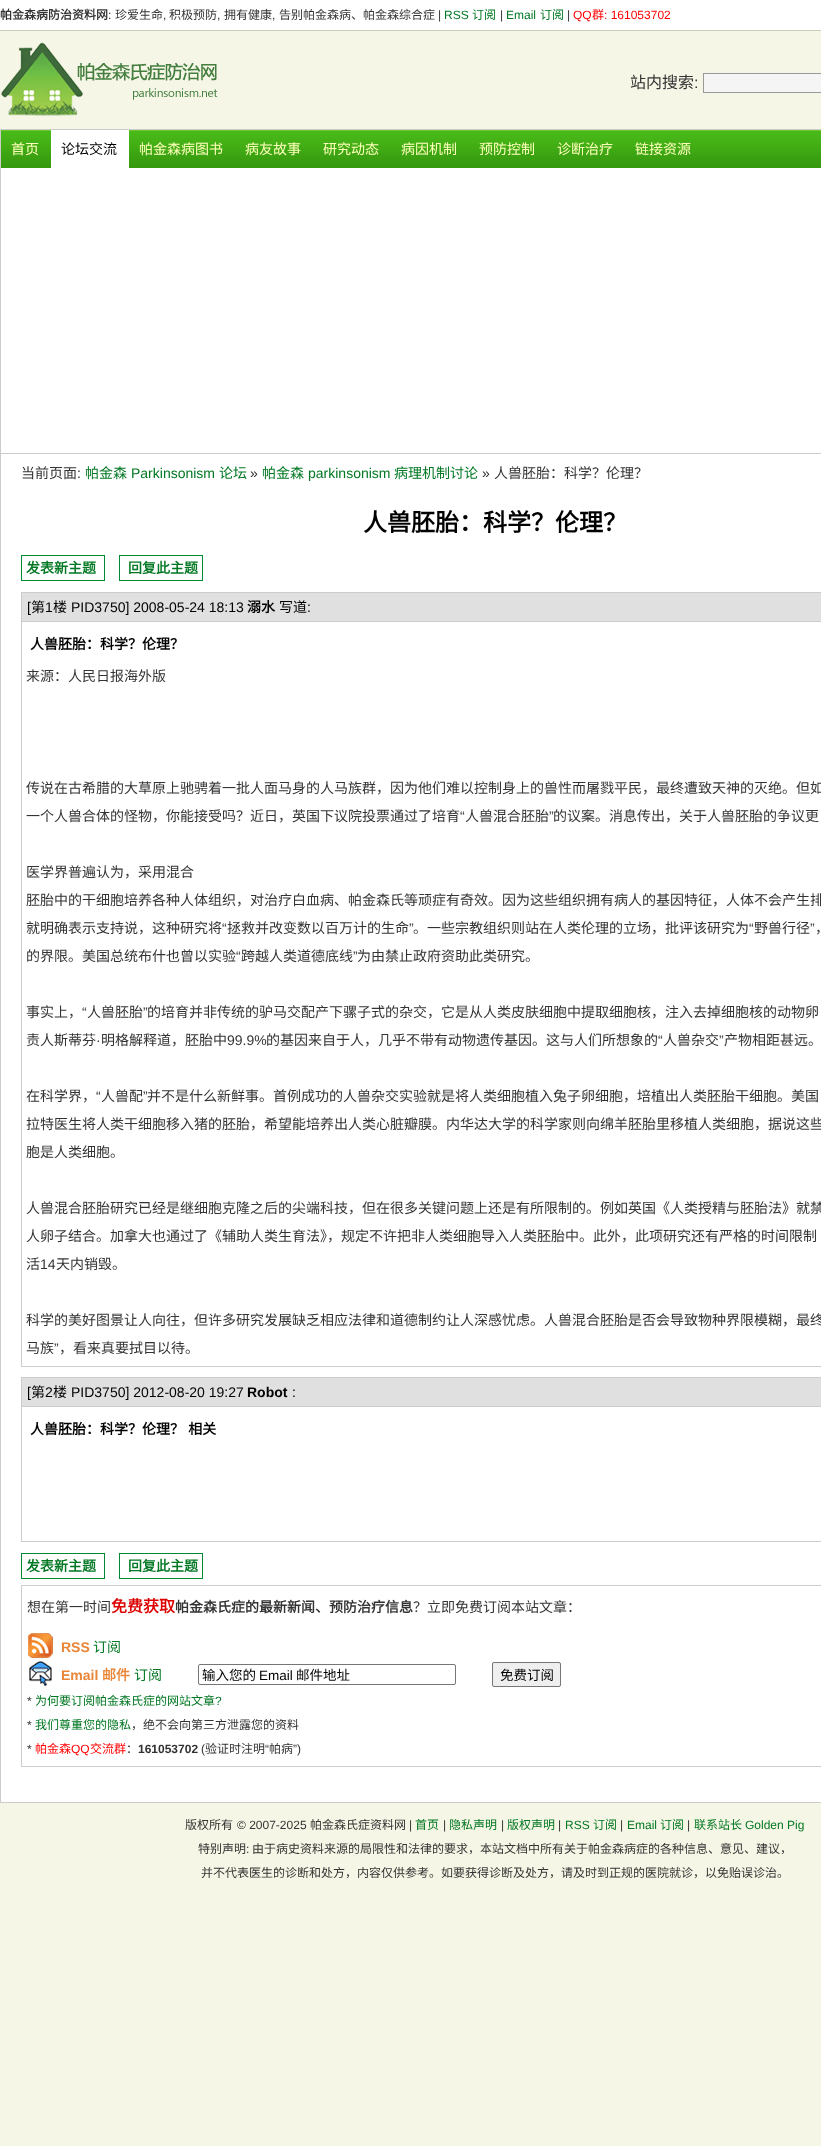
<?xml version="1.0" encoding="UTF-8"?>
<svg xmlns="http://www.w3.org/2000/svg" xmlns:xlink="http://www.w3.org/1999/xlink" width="821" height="2146">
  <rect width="100%" height="100%" fill="#f6f6e6" />
  <rect width="821" height="30" fill="#ffffff" />
  <rect y="30" width="821" height="1" fill="#ccccbb" />
  <image x="1" y="42" width="217" height="74" xlink:href="image1.png" />
  <rect x="703.5" y="73.5" width="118" height="19" fill="#f5f5f5" stroke="#999999" />
  <image x="1" y="130" width="820" height="38" xlink:href="image2.png" />
  <rect y="129" width="821" height="1" fill="#cccccc" />
  <rect y="129" width="1" height="39" fill="#cccccc" />
  <rect x="51" y="130" width="78" height="38" fill="#ffffff" />
  <rect x="1" y="168" width="820" height="285" fill="#ffffff" />
  <rect y="453" width="821" height="1" fill="#cccccc" />
  <rect y="168" width="1" height="286" fill="#cccccc" />
  <rect x="1" y="454" width="820" height="1348" fill="#ffffff" />
  <rect y="1802" width="821" height="1" fill="#cccccc" />
  <rect y="454" width="1" height="1349" fill="#cccccc" />
  <rect x="21" y="555" width="84" height="1" fill="#008833" />
  <rect x="21" y="580" width="75" height="1" fill="#008833" />
  <rect x="21" y="555" width="1" height="26" fill="#008833" />
  <rect x="104" y="555" width="1" height="26" fill="#008833" />
  <rect x="96" y="580" width="9" height="1" fill="#008833" />
  <rect x="119" y="555" width="84" height="1" fill="#008833" />
  <rect x="119" y="580" width="9" height="1" fill="#008833" />
  <rect x="119" y="555" width="1" height="26" fill="#008833" />
  <rect x="202" y="555" width="1" height="26" fill="#008833" />
  <rect x="128" y="580" width="75" height="1" fill="#008833" />
  <rect x="21.5" y="592.5" width="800" height="774" fill="none" stroke="#cccccc" />
  <rect x="22" y="593" width="799" height="28" fill="#e0e0e0" />
  <rect x="22" y="621" width="799" height="1" fill="#cccccc" />
  <rect x="21.5" y="1377.5" width="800" height="164" fill="none" stroke="#cccccc" />
  <rect x="22" y="1378" width="799" height="28" fill="#e0e0e0" />
  <rect x="22" y="1406" width="799" height="1" fill="#cccccc" />
  <rect x="21" y="1553" width="84" height="1" fill="#008833" />
  <rect x="21" y="1578" width="75" height="1" fill="#008833" />
  <rect x="21" y="1553" width="1" height="26" fill="#008833" />
  <rect x="104" y="1553" width="1" height="26" fill="#008833" />
  <rect x="96" y="1578" width="9" height="1" fill="#008833" />
  <rect x="119" y="1553" width="84" height="1" fill="#008833" />
  <rect x="119" y="1578" width="9" height="1" fill="#008833" />
  <rect x="119" y="1553" width="1" height="26" fill="#008833" />
  <rect x="202" y="1553" width="1" height="26" fill="#008833" />
  <rect x="128" y="1578" width="75" height="1" fill="#008833" />
  <rect x="21.5" y="1585.5" width="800" height="181" fill="none" stroke="#cccccc" />
  <image x="28" y="1633" width="25" height="26" xlink:href="image3.png" />
  <image x="29" y="1661" width="23" height="25" xlink:href="image4.png" />
  <rect x="198.5" y="1664.5" width="257" height="20" rx="1.5" fill="none" stroke="#767676" />
  <rect x="492.5" y="1662.5" width="68" height="24" rx="1.5" fill="#efefef" stroke="#767676" />
  <text x="0" y="19" style="font-family: Noto Sans CJK SC; font-size: 12px; font-weight: bold; fill: #333333">帕金森病防治资料网</text>
  <text x="108" y="19" style="font-family: Liberation Sans; font-size: 12px; fill: #333333">:</text>
  <text x="115" y="19" style="font-family: Noto Sans CJK SC; font-size: 12px; fill: #333333">珍爱生命</text>
  <text x="163" y="19" style="font-family: Liberation Sans; font-size: 12px; fill: #333333">,</text>
  <text x="169" y="19" style="font-family: Noto Sans CJK SC; font-size: 12px; fill: #333333">积极预防</text>
  <text x="217" y="19" style="font-family: Liberation Sans; font-size: 12px; fill: #333333">,</text>
  <text x="224" y="19" style="font-family: Noto Sans CJK SC; font-size: 12px; fill: #333333">拥有健康</text>
  <text x="272" y="19" style="font-family: Liberation Sans; font-size: 12px; fill: #333333">,</text>
  <text x="279" y="19" style="font-family: Noto Sans CJK SC; font-size: 12px; fill: #333333">告别帕金森病、帕金森综合症</text>
  <text x="438" y="19" style="font-family: Liberation Sans; font-size: 12px; fill: #333333">|</text>
  <text x="444" y="19" style="font-family: Liberation Sans; font-size: 12px; fill: #007722">RSS</text>
  <text x="472" y="19" style="font-family: Noto Sans CJK SC; font-size: 12px; fill: #007722">订阅</text>
  <text x="500" y="19" style="font-family: Liberation Sans; font-size: 12px; fill: #333333">|</text>
  <text x="506" y="19" style="font-family: Liberation Sans; font-size: 12px; fill: #007722">Email</text>
  <text x="540" y="19" style="font-family: Noto Sans CJK SC; font-size: 12px; fill: #007722">订阅</text>
  <text x="567" y="19" style="font-family: Liberation Sans; font-size: 12px; fill: #333333">|</text>
  <text x="573" y="19" style="font-family: Liberation Sans; font-size: 12px; fill: #ff0000">QQ</text>
  <text x="592" y="19" style="font-family: Noto Sans CJK SC; font-size: 12px; fill: #ff0000">群</text>
  <text x="604" y="19" style="font-family: Liberation Sans; font-size: 12px; fill: #ff0000">: 161053702</text>
  <text x="630" y="88" style="font-family: Noto Sans CJK SC; font-size: 16px; fill: #333333">站内搜索</text>
  <text x="694" y="88" style="font-family: Liberation Sans; font-size: 16px; fill: #333333">:</text>
  <text x="11" y="154" style="font-family: Noto Sans CJK SC; font-size: 14px; fill: #ffffbb">首页</text>
  <text x="61" y="154" style="font-family: Noto Sans CJK SC; font-size: 14px; fill: #000000">论坛交流</text>
  <text x="139" y="154" style="font-family: Noto Sans CJK SC; font-size: 14px; fill: #ffffbb">帕金森病图书</text>
  <text x="245" y="154" style="font-family: Noto Sans CJK SC; font-size: 14px; fill: #ffffbb">病友故事</text>
  <text x="323" y="154" style="font-family: Noto Sans CJK SC; font-size: 14px; fill: #ffffbb">研究动态</text>
  <text x="401" y="154" style="font-family: Noto Sans CJK SC; font-size: 14px; fill: #ffffbb">病因机制</text>
  <text x="479" y="154" style="font-family: Noto Sans CJK SC; font-size: 14px; fill: #ffffbb">预防控制</text>
  <text x="557" y="154" style="font-family: Noto Sans CJK SC; font-size: 14px; fill: #ffffbb">诊断治疗</text>
  <text x="635" y="154" style="font-family: Noto Sans CJK SC; font-size: 14px; fill: #ffffbb">链接资源</text>
  <text x="21" y="478" style="font-family: Noto Sans CJK SC; font-size: 14px; fill: #333333">当前页面</text>
  <text x="77" y="478" style="font-family: Liberation Sans; font-size: 14px; fill: #333333">:</text>
  <text x="85" y="478" style="font-family: Noto Sans CJK SC; font-size: 14px; fill: #007722">帕金森</text>
  <text x="131" y="478" style="font-family: Liberation Sans; font-size: 14px; fill: #007722">Parkinsonism</text>
  <text x="219" y="478" style="font-family: Noto Sans CJK SC; font-size: 14px; fill: #007722">论坛</text>
  <text x="250" y="478" style="font-family: Liberation Sans; font-size: 14px; fill: #333333">»</text>
  <text x="262" y="478" style="font-family: Noto Sans CJK SC; font-size: 14px; fill: #007722">帕金森</text>
  <text x="308" y="478" style="font-family: Liberation Sans; font-size: 14px; fill: #007722">parkinsonism</text>
  <text x="394" y="478" style="font-family: Noto Sans CJK SC; font-size: 14px; fill: #007722">病理机制讨论</text>
  <text x="482" y="478" style="font-family: Liberation Sans; font-size: 14px; fill: #333333">»</text>
  <text x="494" y="478" style="font-family: Noto Sans CJK SC; font-size: 14px; fill: #333333">人兽胚胎：科学？伦理？</text>
  <text x="363" y="531" style="font-family: Noto Sans CJK SC; font-size: 24px; font-weight: bold; fill: #000000">人兽胚胎：科学？伦理？</text>
  <text x="26" y="573" style="font-family: Noto Sans CJK SC; font-size: 14px; font-weight: bold; fill: #007722">发表新主题</text>
  <text x="128" y="573" style="font-family: Noto Sans CJK SC; font-size: 14px; font-weight: bold; fill: #007722">回复此主题</text>
  <text x="27" y="612" style="font-family: Liberation Sans; font-size: 14px; fill: #000000">[</text>
  <text x="31" y="612" style="font-family: Noto Sans CJK SC; font-size: 14px; fill: #000000">第</text>
  <text x="45" y="612" style="font-family: Liberation Sans; font-size: 14px; fill: #000000">1</text>
  <text x="53" y="612" style="font-family: Noto Sans CJK SC; font-size: 14px; fill: #000000">楼</text>
  <text x="71" y="612" style="font-family: Liberation Sans; font-size: 14px; fill: #000000">PID3750] 2008-05-24 18:13</text>
  <text x="247" y="612" style="font-family: Noto Sans CJK SC; font-size: 14px; font-weight: bold; fill: #000000">溺水</text>
  <text x="279" y="612" style="font-family: Noto Sans CJK SC; font-size: 14px; fill: #000000">写道</text>
  <text x="307" y="612" style="font-family: Liberation Sans; font-size: 14px; fill: #000000">:</text>
  <text x="30" y="649" style="font-family: Noto Sans CJK SC; font-size: 14px; font-weight: bold; fill: #000000">人兽胚胎：科学？伦理？</text>
  <text x="26" y="681" style="font-family: Noto Sans CJK SC; font-size: 14px; fill: #333333">来源：人民日报海外版</text>
  <text x="26" y="793" style="font-family: Noto Sans CJK SC; font-size: 14px; fill: #333333">传说在古希腊的大草原上驰骋着一批人面马身的人马族群，因为他们难以控制身上的兽性而屠戮平民，最终遭致天神的灭绝。但如</text>
  <text x="26" y="821" style="font-family: Noto Sans CJK SC; font-size: 14px; fill: #333333">一个人兽合体的怪物，你能接受吗？近日，英国下议院投票通过了培育</text>
  <text x="460" y="821" style="font-family: Liberation Sans; font-size: 14px; fill: #333333">“</text>
  <text x="465" y="821" style="font-family: Noto Sans CJK SC; font-size: 14px; fill: #333333">人兽混合胚胎</text>
  <text x="549" y="821" style="font-family: Liberation Sans; font-size: 14px; fill: #333333">”</text>
  <text x="553" y="821" style="font-family: Noto Sans CJK SC; font-size: 14px; fill: #333333">的议案。消息传出，关于人兽胚胎的争议更</text>
  <text x="26" y="877" style="font-family: Noto Sans CJK SC; font-size: 14px; fill: #333333">医学界普遍认为，采用混合</text>
  <text x="26" y="905" style="font-family: Noto Sans CJK SC; font-size: 14px; fill: #333333">胚胎中的干细胞培养各种人体组织，对治疗白血病、帕金森氏等顽症有奇效。因为这些组织拥有病人的基因特征，人体不会产生排</text>
  <text x="26" y="933" style="font-family: Noto Sans CJK SC; font-size: 14px; fill: #333333">就明确表示支持说，这种研究将</text>
  <text x="222" y="933" style="font-family: Liberation Sans; font-size: 14px; fill: #333333">“</text>
  <text x="227" y="933" style="font-family: Noto Sans CJK SC; font-size: 14px; fill: #333333">拯救并改变数以百万计的生命</text>
  <text x="409" y="933" style="font-family: Liberation Sans; font-size: 14px; fill: #333333">”</text>
  <text x="413" y="933" style="font-family: Noto Sans CJK SC; font-size: 14px; fill: #333333">。一些宗教组织则站在人类伦理的立场，批评该研究为</text>
  <text x="749" y="933" style="font-family: Liberation Sans; font-size: 14px; fill: #333333">“</text>
  <text x="754" y="933" style="font-family: Noto Sans CJK SC; font-size: 14px; fill: #333333">野兽行径</text>
  <text x="810" y="933" style="font-family: Liberation Sans; font-size: 14px; fill: #333333">”</text>
  <text x="815" y="933" style="font-family: Noto Sans CJK SC; font-size: 14px; fill: #333333">，</text>
  <text x="26" y="961" style="font-family: Noto Sans CJK SC; font-size: 14px; fill: #333333">的界限。美国总统布什也曾以实验</text>
  <text x="236" y="961" style="font-family: Liberation Sans; font-size: 14px; fill: #333333">“</text>
  <text x="241" y="961" style="font-family: Noto Sans CJK SC; font-size: 14px; fill: #333333">跨越人类道德底线</text>
  <text x="353" y="961" style="font-family: Liberation Sans; font-size: 14px; fill: #333333">”</text>
  <text x="357" y="961" style="font-family: Noto Sans CJK SC; font-size: 14px; fill: #333333">为由禁止政府资助此类研究。</text>
  <text x="26" y="1017" style="font-family: Noto Sans CJK SC; font-size: 14px; fill: #333333">事实上，</text>
  <text x="82" y="1017" style="font-family: Liberation Sans; font-size: 14px; fill: #333333">“</text>
  <text x="87" y="1017" style="font-family: Noto Sans CJK SC; font-size: 14px; fill: #333333">人兽胚胎</text>
  <text x="143" y="1017" style="font-family: Liberation Sans; font-size: 14px; fill: #333333">”</text>
  <text x="147" y="1017" style="font-family: Noto Sans CJK SC; font-size: 14px; fill: #333333">的培育并非传统的驴马交配产下骡子式的杂交，它是从人类皮肤细胞中提取细胞核，注入去掉细胞核的动物卵</text>
  <text x="26" y="1045" style="font-family: Noto Sans CJK SC; font-size: 14px; fill: #333333">责人斯蒂芬</text>
  <text x="101" y="1045" style="font-family: Noto Sans CJK SC; font-size: 14px; fill: #333333">明格解释道，胚胎中</text>
  <text x="227" y="1045" style="font-family: Liberation Sans; font-size: 14px; fill: #333333">99.9%</text>
  <text x="266" y="1045" style="font-family: Noto Sans CJK SC; font-size: 14px; fill: #333333">的基因来自于人，几乎不带有动物遗传基因。这与人们所想象的</text>
  <text x="658" y="1045" style="font-family: Liberation Sans; font-size: 14px; fill: #333333">“</text>
  <text x="663" y="1045" style="font-family: Noto Sans CJK SC; font-size: 14px; fill: #333333">人兽杂交</text>
  <text x="719" y="1045" style="font-family: Liberation Sans; font-size: 14px; fill: #333333">”</text>
  <text x="724" y="1045" style="font-family: Noto Sans CJK SC; font-size: 14px; fill: #333333">产物相距甚远。</text>
  <text x="96" y="1045" style="font-family: Liberation Sans; font-size: 14px; fill: #333333">·</text>
  <text x="26" y="1101" style="font-family: Noto Sans CJK SC; font-size: 14px; fill: #333333">在科学界，</text>
  <text x="96" y="1101" style="font-family: Liberation Sans; font-size: 14px; fill: #333333">“</text>
  <text x="101" y="1101" style="font-family: Noto Sans CJK SC; font-size: 14px; fill: #333333">人兽配</text>
  <text x="143" y="1101" style="font-family: Liberation Sans; font-size: 14px; fill: #333333">”</text>
  <text x="147" y="1101" style="font-family: Noto Sans CJK SC; font-size: 14px; fill: #333333">并不是什么新鲜事。首例成功的人兽杂交实验就是将人类细胞植入兔子卵细胞，培植出人类胚胎干细胞。美国</text>
  <text x="26" y="1129" style="font-family: Noto Sans CJK SC; font-size: 14px; fill: #333333">拉特医生将人类干细胞移入猪的胚胎，希望能培养出人类心脏瓣膜。内华达大学的科学家则向绵羊胚胎里移植人类细胞，据说这些</text>
  <text x="26" y="1157" style="font-family: Noto Sans CJK SC; font-size: 14px; fill: #333333">胞是人类细胞。</text>
  <text x="26" y="1213" style="font-family: Noto Sans CJK SC; font-size: 14px; fill: #333333">人兽混合胚胎研究已经是继细胞克隆之后的尖端科技，但在很多关键问题上还是有所限制的。例如英国《人类授精与胚胎法》就禁</text>
  <text x="26" y="1241" style="font-family: Noto Sans CJK SC; font-size: 14px; fill: #333333">人卵子结合。加拿大也通过了《辅助人类生育法》，规定不许把非人类细胞导入人类胚胎中。此外，此项研究还有严格的时间限制</text>
  <text x="26" y="1269" style="font-family: Noto Sans CJK SC; font-size: 14px; fill: #333333">活</text>
  <text x="40" y="1269" style="font-family: Liberation Sans; font-size: 14px; fill: #333333">14</text>
  <text x="56" y="1269" style="font-family: Noto Sans CJK SC; font-size: 14px; fill: #333333">天内销毁。</text>
  <text x="26" y="1325" style="font-family: Noto Sans CJK SC; font-size: 14px; fill: #333333">科学的美好图景让人向往，但许多研究发展缺乏相应法律和道德制约让人深感忧虑。人兽混合胚胎是否会导致物种界限模糊，最终</text>
  <text x="26" y="1353" style="font-family: Noto Sans CJK SC; font-size: 14px; fill: #333333">马族</text>
  <text x="54" y="1353" style="font-family: Liberation Sans; font-size: 14px; fill: #333333">”</text>
  <text x="59" y="1353" style="font-family: Noto Sans CJK SC; font-size: 14px; fill: #333333">，看来真要拭目以待。</text>
  <text x="27" y="1397" style="font-family: Liberation Sans; font-size: 14px; fill: #000000">[</text>
  <text x="31" y="1397" style="font-family: Noto Sans CJK SC; font-size: 14px; fill: #000000">第</text>
  <text x="45" y="1397" style="font-family: Liberation Sans; font-size: 14px; fill: #000000">2</text>
  <text x="53" y="1397" style="font-family: Noto Sans CJK SC; font-size: 14px; fill: #000000">楼</text>
  <text x="71" y="1397" style="font-family: Liberation Sans; font-size: 14px; fill: #000000">PID3750] 2012-08-20 19:27</text>
  <text x="247" y="1397" style="font-family: Liberation Sans; font-size: 14px; font-weight: bold; fill: #000000">Robot</text>
  <text x="292" y="1397" style="font-family: Liberation Sans; font-size: 14px; fill: #000000">:</text>
  <text x="30" y="1434" word-spacing="1" style="font-family: Noto Sans CJK SC; font-size: 14px; font-weight: bold; fill: #000000">人兽胚胎：科学？伦理？ 相关</text>
  <text x="26" y="1571" style="font-family: Noto Sans CJK SC; font-size: 14px; font-weight: bold; fill: #007722">发表新主题</text>
  <text x="128" y="1571" style="font-family: Noto Sans CJK SC; font-size: 14px; font-weight: bold; fill: #007722">回复此主题</text>
  <text x="27" y="1612" style="font-family: Noto Sans CJK SC; font-size: 14px; fill: #333333">想在第一时间</text>
  <text x="111" y="1612" style="font-family: Noto Sans CJK SC; font-size: 16px; font-weight: bold; fill: #dd0000">免费获取</text>
  <text x="175" y="1612" style="font-family: Noto Sans CJK SC; font-size: 14px; font-weight: bold; fill: #333333">帕金森氏症的最新新闻、预防治疗信息</text>
  <text x="413" y="1612" style="font-family: Noto Sans CJK SC; font-size: 14px; fill: #333333">？立即免费订阅本站文章：</text>
  <text x="61" y="1652" style="font-family: Liberation Sans; font-size: 14px; font-weight: bold; fill: #e98638">RSS</text>
  <text x="93" y="1652" style="font-family: Noto Sans CJK SC; font-size: 14px; fill: #007722">订阅</text>
  <text x="61" y="1680" style="font-family: Liberation Sans; font-size: 14px; font-weight: bold; fill: #e98638">Email</text>
  <text x="102" y="1680" style="font-family: Noto Sans CJK SC; font-size: 14px; font-weight: bold; fill: #e98638">邮件</text>
  <text x="134" y="1680" style="font-family: Noto Sans CJK SC; font-size: 14px; fill: #007722">订阅</text>
  <text x="202" y="1680" style="font-family: Noto Sans CJK SC; font-size: 13.5px; fill: #000000">输入您的</text>
  <text x="259" y="1680" style="font-family: Liberation Sans; font-size: 13.5px; fill: #000000">Email</text>
  <text x="296" y="1680" style="font-family: Noto Sans CJK SC; font-size: 13.5px; fill: #000000">邮件地址</text>
  <text x="500" y="1680" style="font-family: Noto Sans CJK SC; font-size: 13.5px; fill: #000000">免费订阅</text>
  <text x="27" y="1705" style="font-family: Liberation Sans; font-size: 12px; fill: #333333">*</text>
  <text x="35" y="1705" style="font-family: Noto Sans CJK SC; font-size: 12px; fill: #007722">为何要订阅帕金森氏症的网站文章</text>
  <text x="215" y="1705" style="font-family: Liberation Sans; font-size: 12px; fill: #007722">?</text>
  <text x="27" y="1729" style="font-family: Liberation Sans; font-size: 12px; fill: #333333">*</text>
  <text x="35" y="1729" style="font-family: Noto Sans CJK SC; font-size: 12px; fill: #007722">我们尊重您的隐私</text>
  <text x="131" y="1729" style="font-family: Noto Sans CJK SC; font-size: 12px; fill: #333333">，绝不会向第三方泄露您的资料</text>
  <text x="27" y="1753" style="font-family: Liberation Sans; font-size: 12px; fill: #333333">*</text>
  <text x="35" y="1753" style="font-family: Noto Sans CJK SC; font-size: 12px; fill: #ff0000">帕金森</text>
  <text x="71" y="1753" style="font-family: Liberation Sans; font-size: 12px; fill: #ff0000">QQ</text>
  <text x="90" y="1753" style="font-family: Noto Sans CJK SC; font-size: 12px; fill: #ff0000">交流群</text>
  <text x="126" y="1753" style="font-family: Noto Sans CJK SC; font-size: 12px; fill: #333333">：</text>
  <text x="138" y="1753" style="font-family: Liberation Sans; font-size: 12px; font-weight: bold; fill: #333333">161053702</text>
  <text x="201" y="1753" style="font-family: Liberation Sans; font-size: 12px; fill: #333333">(</text>
  <text x="205" y="1753" style="font-family: Noto Sans CJK SC; font-size: 12px; fill: #333333">验证时注明</text>
  <text x="265" y="1753" style="font-family: Liberation Sans; font-size: 12px; fill: #333333">“</text>
  <text x="269" y="1753" style="font-family: Noto Sans CJK SC; font-size: 12px; fill: #333333">帕病</text>
  <text x="293" y="1753" style="font-family: Liberation Sans; font-size: 12px; fill: #333333">”)</text>
  <text x="185" y="1829" style="font-family: Noto Sans CJK SC; font-size: 12px; fill: #333333">版权所有</text>
  <text x="237" y="1829" style="font-family: Liberation Sans; font-size: 12px; fill: #333333">© 2007-2025</text>
  <text x="310" y="1829" style="font-family: Noto Sans CJK SC; font-size: 12px; fill: #333333">帕金森氏症资料网</text>
  <text x="409" y="1829" style="font-family: Liberation Sans; font-size: 12px; fill: #333333">|</text>
  <text x="415" y="1829" style="font-family: Noto Sans CJK SC; font-size: 12px; fill: #007722">首页</text>
  <text x="443" y="1829" style="font-family: Liberation Sans; font-size: 12px; fill: #333333">|</text>
  <text x="449" y="1829" style="font-family: Noto Sans CJK SC; font-size: 12px; fill: #007722">隐私声明</text>
  <text x="501" y="1829" style="font-family: Liberation Sans; font-size: 12px; fill: #333333">|</text>
  <text x="507" y="1829" style="font-family: Noto Sans CJK SC; font-size: 12px; fill: #007722">版权声明</text>
  <text x="558" y="1829" style="font-family: Liberation Sans; font-size: 12px; fill: #333333">|</text>
  <text x="565" y="1829" style="font-family: Liberation Sans; font-size: 12px; fill: #007722">RSS</text>
  <text x="593" y="1829" style="font-family: Noto Sans CJK SC; font-size: 12px; fill: #007722">订阅</text>
  <text x="620" y="1829" style="font-family: Liberation Sans; font-size: 12px; fill: #333333">|</text>
  <text x="627" y="1829" style="font-family: Liberation Sans; font-size: 12px; fill: #007722">Email</text>
  <text x="660" y="1829" style="font-family: Noto Sans CJK SC; font-size: 12px; fill: #007722">订阅</text>
  <text x="687" y="1829" style="font-family: Liberation Sans; font-size: 12px; fill: #333333">|</text>
  <text x="694" y="1829" style="font-family: Noto Sans CJK SC; font-size: 12px; fill: #007722">联系站长</text>
  <text x="745" y="1829" style="font-family: Liberation Sans; font-size: 12px; fill: #007722">Golden Pig</text>
  <text x="198" y="1853" style="font-family: Noto Sans CJK SC; font-size: 12px; fill: #333333">特别声明</text>
  <text x="246" y="1853" style="font-family: Liberation Sans; font-size: 12px; fill: #333333">:</text>
  <text x="252" y="1853" style="font-family: Noto Sans CJK SC; font-size: 12px; fill: #333333">由于病史资料来源的局限性和法律的要求，本站文档中所有关于帕金森病症的各种信息、意见、建议，</text>
  <text x="201" y="1877" style="font-family: Noto Sans CJK SC; font-size: 12px; fill: #333333">并不代表医生的诊断和处方，内容仅供参考。如要获得诊断及处方，请及时到正规的医院就诊，以免贻误诊治。</text>
</svg>
